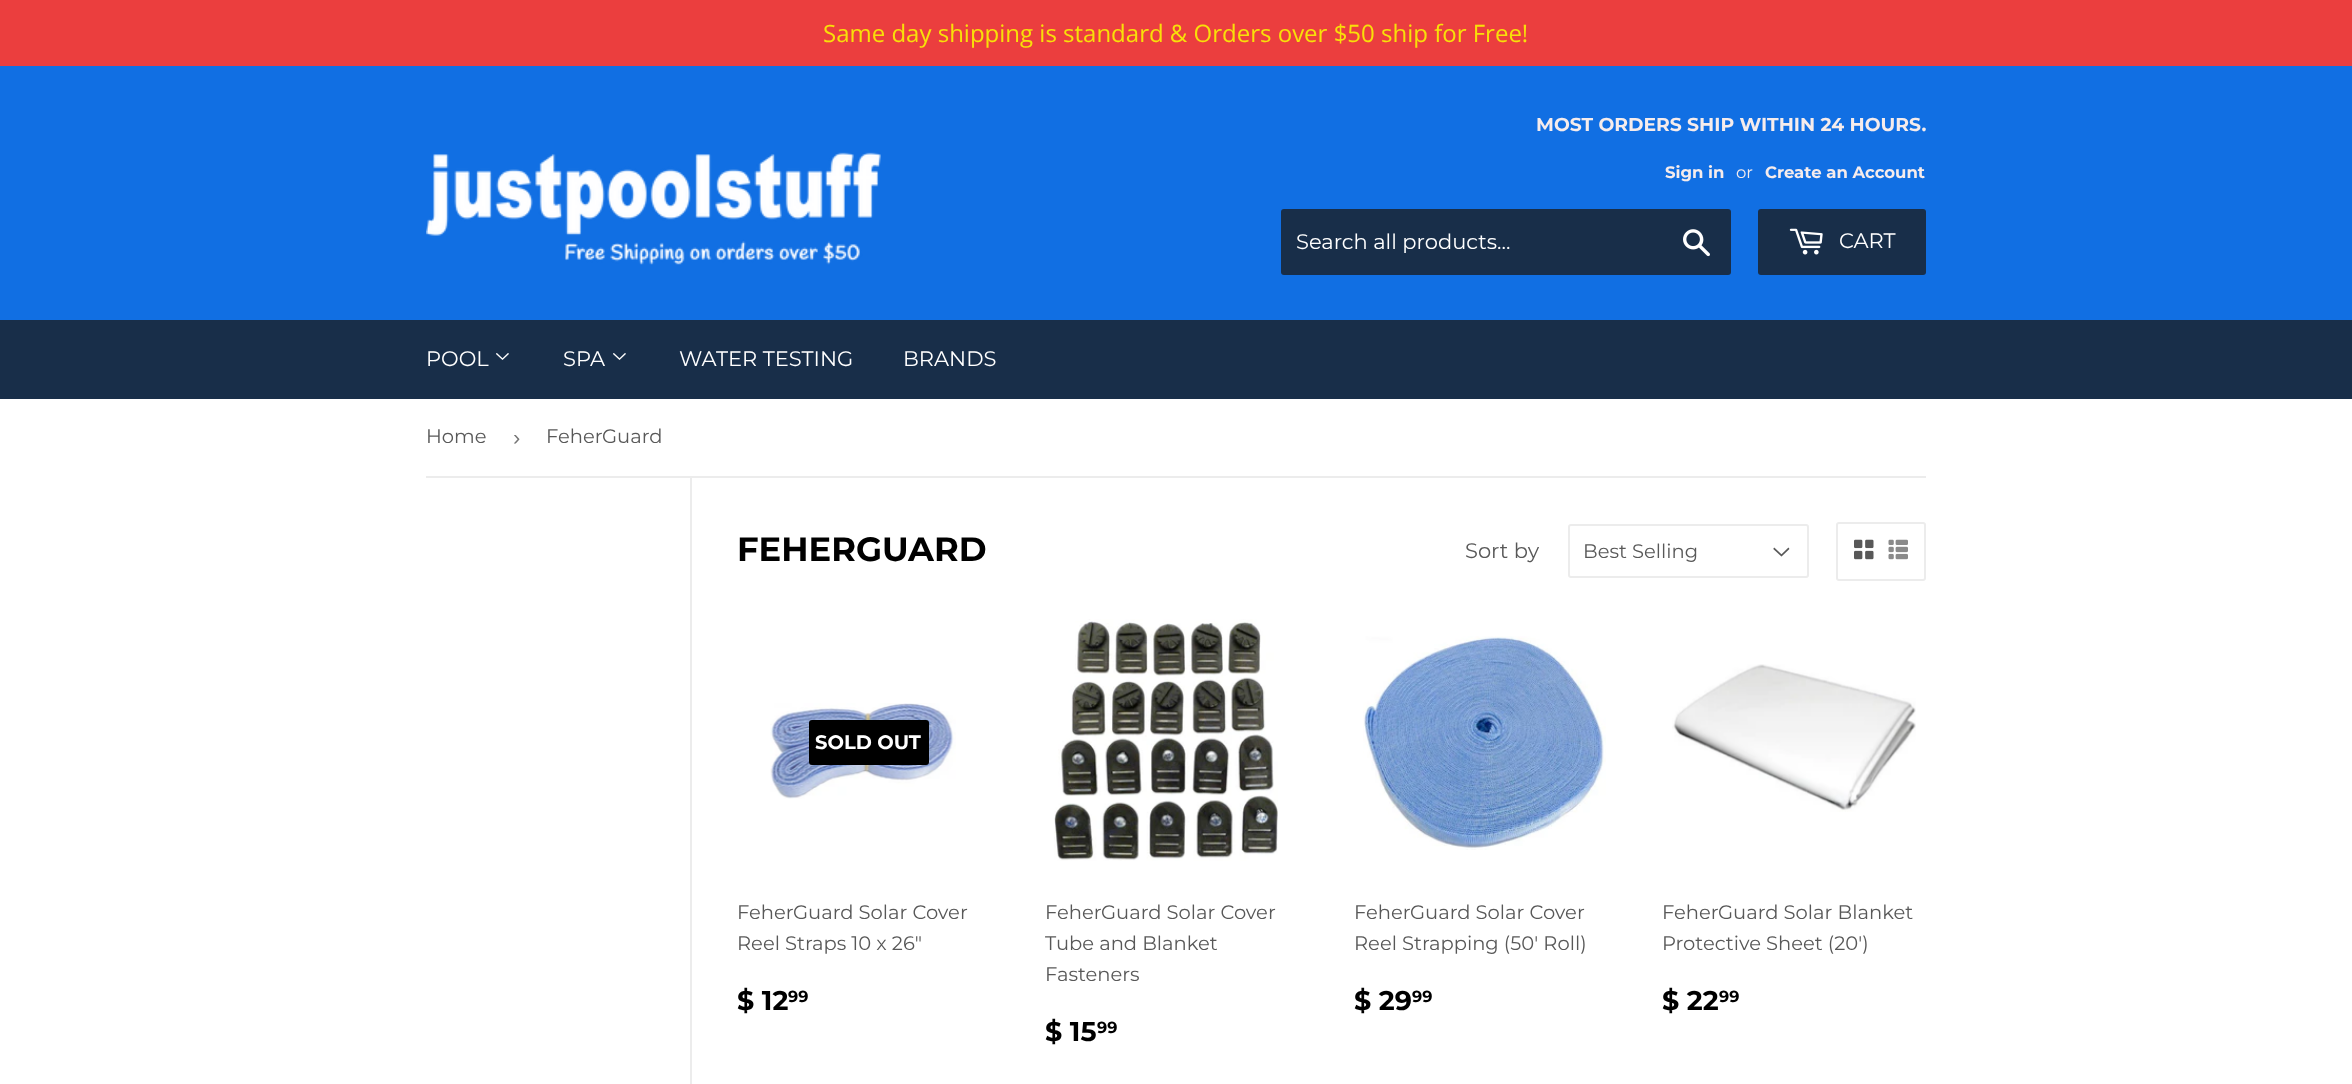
<?xml version="1.0" encoding="UTF-8"?>
<svg xmlns="http://www.w3.org/2000/svg" xmlns:xlink="http://www.w3.org/1999/xlink" width="2352" height="1084">
  <rect width="100%" height="100%" fill="#ffffff" />
  <rect width="2352" height="66" fill="#eb3e3e" />
  <rect y="66" width="2352" height="254" fill="#116fe3" />
  <image x="426" y="152" width="455" height="113" xlink:href="image1.png" />
  <rect x="1281" y="209" width="450" height="66" rx="3" fill="#182e49" />
  <image x="1683" y="229" width="27" height="28" xlink:href="image2.png" />
  <rect x="1758" y="209" width="168" height="66" rx="3" fill="#182e49" />
  <image x="1789" y="228" width="34" height="27" xlink:href="image3.png" />
  <rect y="320" width="2352" height="79" fill="#182e49" />
  <image x="496" y="353" width="13" height="7" xlink:href="image4.png" />
  <image x="613" y="353" width="13" height="7" xlink:href="image4.png" />
  <rect x="426" y="476" width="1500" height="2" fill="#ececec" />
  <rect x="690" y="477" width="2" height="607" fill="#ececec" />
  <image x="1773" y="547" width="17" height="10" xlink:href="image5.png" />
  <rect x="1569" y="525" width="239" height="52" rx="2" fill="none" stroke="#ececec" stroke-width="2" />
  <rect x="1837" y="523" width="88" height="57" rx="2" fill="none" stroke="#ececec" stroke-width="2" />
  <image x="1854" y="539" width="20" height="21" xlink:href="image6.png" />
  <image x="1888" y="539" width="20" height="21" xlink:href="image7.png" />
  <image x="770" y="703" width="186" height="96" xlink:href="image8.png" />
  <rect x="809" y="720" width="120" height="45" rx="3" fill="#000000" />
  <image x="1054" y="619" width="224" height="242" xlink:href="image9.png" />
  <image x="1363" y="636" width="243" height="214" xlink:href="image10.png" />
  <image x="1672" y="664" width="244" height="148" xlink:href="image11.png" />
  <text x="823" y="42" style="font-family: Open Sans; font-size: 24px; fill: #f8e009">Same day shipping is standard &amp; Orders over $50 ship for Free!</text>
  <text x="1536" y="131" style="font-family: Montserrat; font-size: 18.75px; font-weight: bold; fill: #f6ecec">MOST ORDERS SHIP WITHIN 24 HOURS.</text>
  <text x="1665" y="178" style="font-family: Montserrat; font-size: 16.5px; font-weight: bold; fill: #f6ecec">Sign in</text>
  <text x="1736" y="178" style="font-family: Montserrat; font-size: 16.5px; fill: #f6ecec">or</text>
  <text x="1765" y="178" style="font-family: Montserrat; font-size: 16.5px; font-weight: bold; fill: #f6ecec">Create an Account</text>
  <text x="1296" y="249" style="font-family: Montserrat; font-size: 21px; fill: #ffffff">Search all products...</text>
  <text x="1839" y="248" style="font-family: Montserrat; font-size: 21px; fill: #ffffff">CART</text>
  <text x="426" y="366" style="font-family: Montserrat; font-size: 21px; fill: #ffffff">POOL</text>
  <text x="563" y="366" style="font-family: Montserrat; font-size: 21px; fill: #ffffff">SPA</text>
  <text x="679" y="366" style="font-family: Montserrat; font-size: 21px; fill: #ffffff">WATER TESTING</text>
  <text x="903" y="366" style="font-family: Montserrat; font-size: 21px; fill: #ffffff">BRANDS</text>
  <text x="426" y="443" style="font-family: Montserrat; font-size: 19.5px; fill: #585858">Home</text>
  <text x="513" y="445" style="font-family: Liberation Sans; font-size: 22px; fill: #767676">›</text>
  <text x="546" y="443" style="font-family: Montserrat; font-size: 19.5px; fill: #585858">FeherGuard</text>
  <text x="737" y="561" style="font-family: Montserrat; font-size: 33.75px; font-weight: bold; fill: #000000">FEHERGUARD</text>
  <text x="1465" y="558" style="font-family: Montserrat; font-size: 21px; fill: #585858">Sort by</text>
  <text x="1583" y="558" style="font-family: Montserrat; font-size: 19.5px; fill: #585858">Best Selling</text>
  <text x="815" y="749" style="font-family: Montserrat; font-size: 19.5px; font-weight: bold; fill: #ffffff">SOLD OUT</text>
  <text x="737" y="919" style="font-family: Montserrat; font-size: 19.5px; fill: #585858">FeherGuard Solar Cover</text>
  <text x="737" y="950" style="font-family: Montserrat; font-size: 19.5px; fill: #585858">Reel Straps 10 x 26"</text>
  <text x="737" y="1010" style="font-family: Montserrat; font-size: 27px; font-weight: bold; fill: #000000">$ 12</text>
  <text x="788" y="1002" style="font-family: Montserrat; font-size: 16px; font-weight: bold; fill: #000000">99</text>
  <text x="1045" y="919" style="font-family: Montserrat; font-size: 19.5px; fill: #585858">FeherGuard Solar Cover</text>
  <text x="1045" y="950" style="font-family: Montserrat; font-size: 19.5px; fill: #585858">Tube and Blanket</text>
  <text x="1045" y="981" style="font-family: Montserrat; font-size: 19.5px; fill: #585858">Fasteners</text>
  <text x="1045" y="1041" style="font-family: Montserrat; font-size: 27px; font-weight: bold; fill: #000000">$ 15</text>
  <text x="1097" y="1033" style="font-family: Montserrat; font-size: 16px; font-weight: bold; fill: #000000">99</text>
  <text x="1354" y="919" style="font-family: Montserrat; font-size: 19.5px; fill: #585858">FeherGuard Solar Cover</text>
  <text x="1354" y="950" style="font-family: Montserrat; font-size: 19.5px; fill: #585858">Reel Strapping (50' Roll)</text>
  <text x="1354" y="1010" style="font-family: Montserrat; font-size: 27px; font-weight: bold; fill: #000000">$ 29</text>
  <text x="1412" y="1002" style="font-family: Montserrat; font-size: 16px; font-weight: bold; fill: #000000">99</text>
  <text x="1662" y="919" style="font-family: Montserrat; font-size: 19.5px; fill: #585858">FeherGuard Solar Blanket</text>
  <text x="1662" y="950" style="font-family: Montserrat; font-size: 19.5px; fill: #585858">Protective Sheet (20')</text>
  <text x="1662" y="1010" style="font-family: Montserrat; font-size: 27px; font-weight: bold; fill: #000000">$ 22</text>
  <text x="1719" y="1002" style="font-family: Montserrat; font-size: 16px; font-weight: bold; fill: #000000">99</text>
</svg>
